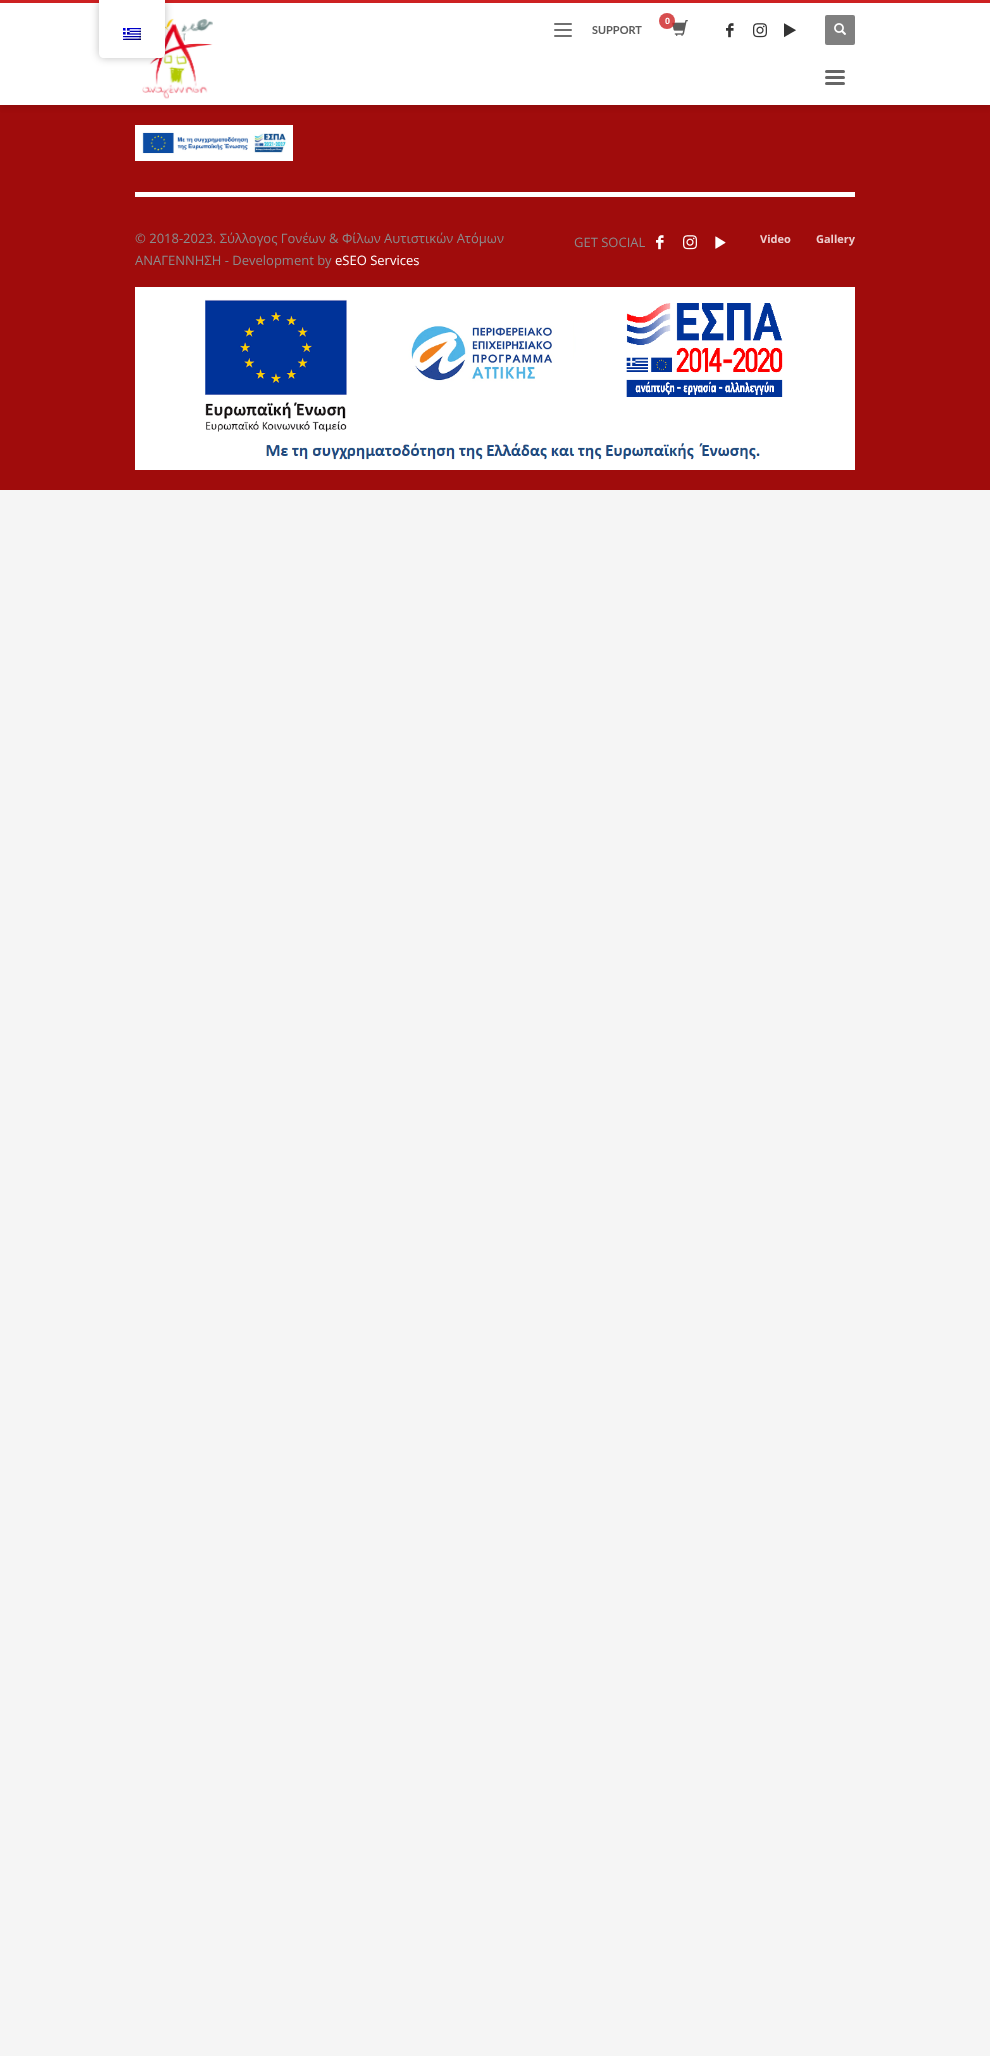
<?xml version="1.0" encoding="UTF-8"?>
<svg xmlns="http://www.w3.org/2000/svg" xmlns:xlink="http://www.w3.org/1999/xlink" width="990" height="2056">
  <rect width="100%" height="100%" fill="#f5f5f5" />
  <rect y="105" width="990" height="385" fill="#a00c0c" />
  <rect y="3" width="990" height="105" fill="#000000" fill-opacity="0.1" filter="blur(2.5px)" />
  <rect y="3" width="990" height="102" fill="#ffffff" />
  <rect width="990" height="3" fill="#cd2122" />
  <image x="135" y="12" width="78" height="87" xlink:href="image2.png" />
  <rect x="99" width="66" height="58" rx="5" fill="#000000" fill-opacity="0.25" filter="blur(4px)" />
  <path d="M 99 0 h 66 v 53 c 0 3 -2 5 -5 5 h -56 c -3 0 -5 -2 -5 -5 z" fill="#ffffff" />
  <image x="123" y="28" width="18" height="12" xlink:href="image1.png" />
  <image x="672" y="20" width="16" height="16" xlink:href="image3.png" />
  <circle cx="667" cy="21" r="8" fill="#cd2122" fill-opacity="0.8" />
  <rect x="825" y="15" width="30" height="30" rx="2" fill="#808080" />
  <image x="834" y="23" width="12" height="12" xlink:href="image4.png" />
  <rect x="554" y="35" width="18" height="2" rx="1" fill="#707070" />
  <rect x="554" y="29" width="18" height="2" rx="1" fill="#707070" />
  <rect x="554" y="23" width="18" height="2" rx="1" fill="#707070" />
  <image x="726" y="23" width="8" height="15" xlink:href="image5.png" />
  <image x="753" y="23" width="14" height="15" xlink:href="image6.png" />
  <image x="784" y="23" width="12" height="15" xlink:href="image7.png" />
  <rect x="825" y="70" width="20" height="3" rx="1.5" fill="#666666" />
  <rect x="825" y="76" width="20" height="3" rx="1.5" fill="#666666" />
  <rect x="825" y="82" width="20" height="3" rx="1.5" fill="#666666" />
  <image x="135" y="125" width="158" height="36" xlink:href="image8.png" />
  <rect x="135" y="192" width="720" height="5" fill="#ffffff" />
  <image x="135" y="287" width="720" height="183" xlink:href="image9.png" />
  <image x="656" y="235" width="8" height="15" xlink:href="image10.png" />
  <image x="683" y="235" width="14" height="15" xlink:href="image11.png" />
  <image x="715" y="236" width="11" height="13" xlink:href="image12.png" />
  <text x="665" y="24" style="font-family: Liberation Sans; font-size: 9px; font-weight: bold; fill: #ffffff">0</text>
  <text x="592" y="34" style="font-family: Lato; font-size: 11px; font-weight: bold; fill: #5c5c5c">SUPPORT</text>
  <text x="135" y="243" style="font-family: Open Sans; font-size: 13px; fill: #8b8c8d">© 2018-2023. Σύλλογος Γονέων &amp; Φίλων Αυτιστικών Ατόμων</text>
  <text x="135" y="265" style="font-family: Open Sans; font-size: 13px; fill: #8b8c8d">ΑΝΑΓΕΝΝΗΣΗ - Development by</text>
  <text x="335" y="265" style="font-family: Open Sans; font-size: 13px; fill: #ffffff">eSEO Services</text>
  <text x="574" y="247" style="font-family: Open Sans; font-size: 13px; fill: #8b8c8d">GET SOCIAL</text>
  <text x="760" y="243" style="font-family: Open Sans; font-size: 11px; font-weight: bold; fill: #eccece">Video</text>
  <text x="816" y="243" style="font-family: Open Sans; font-size: 11px; font-weight: bold; fill: #eccece">Gallery</text>
</svg>
